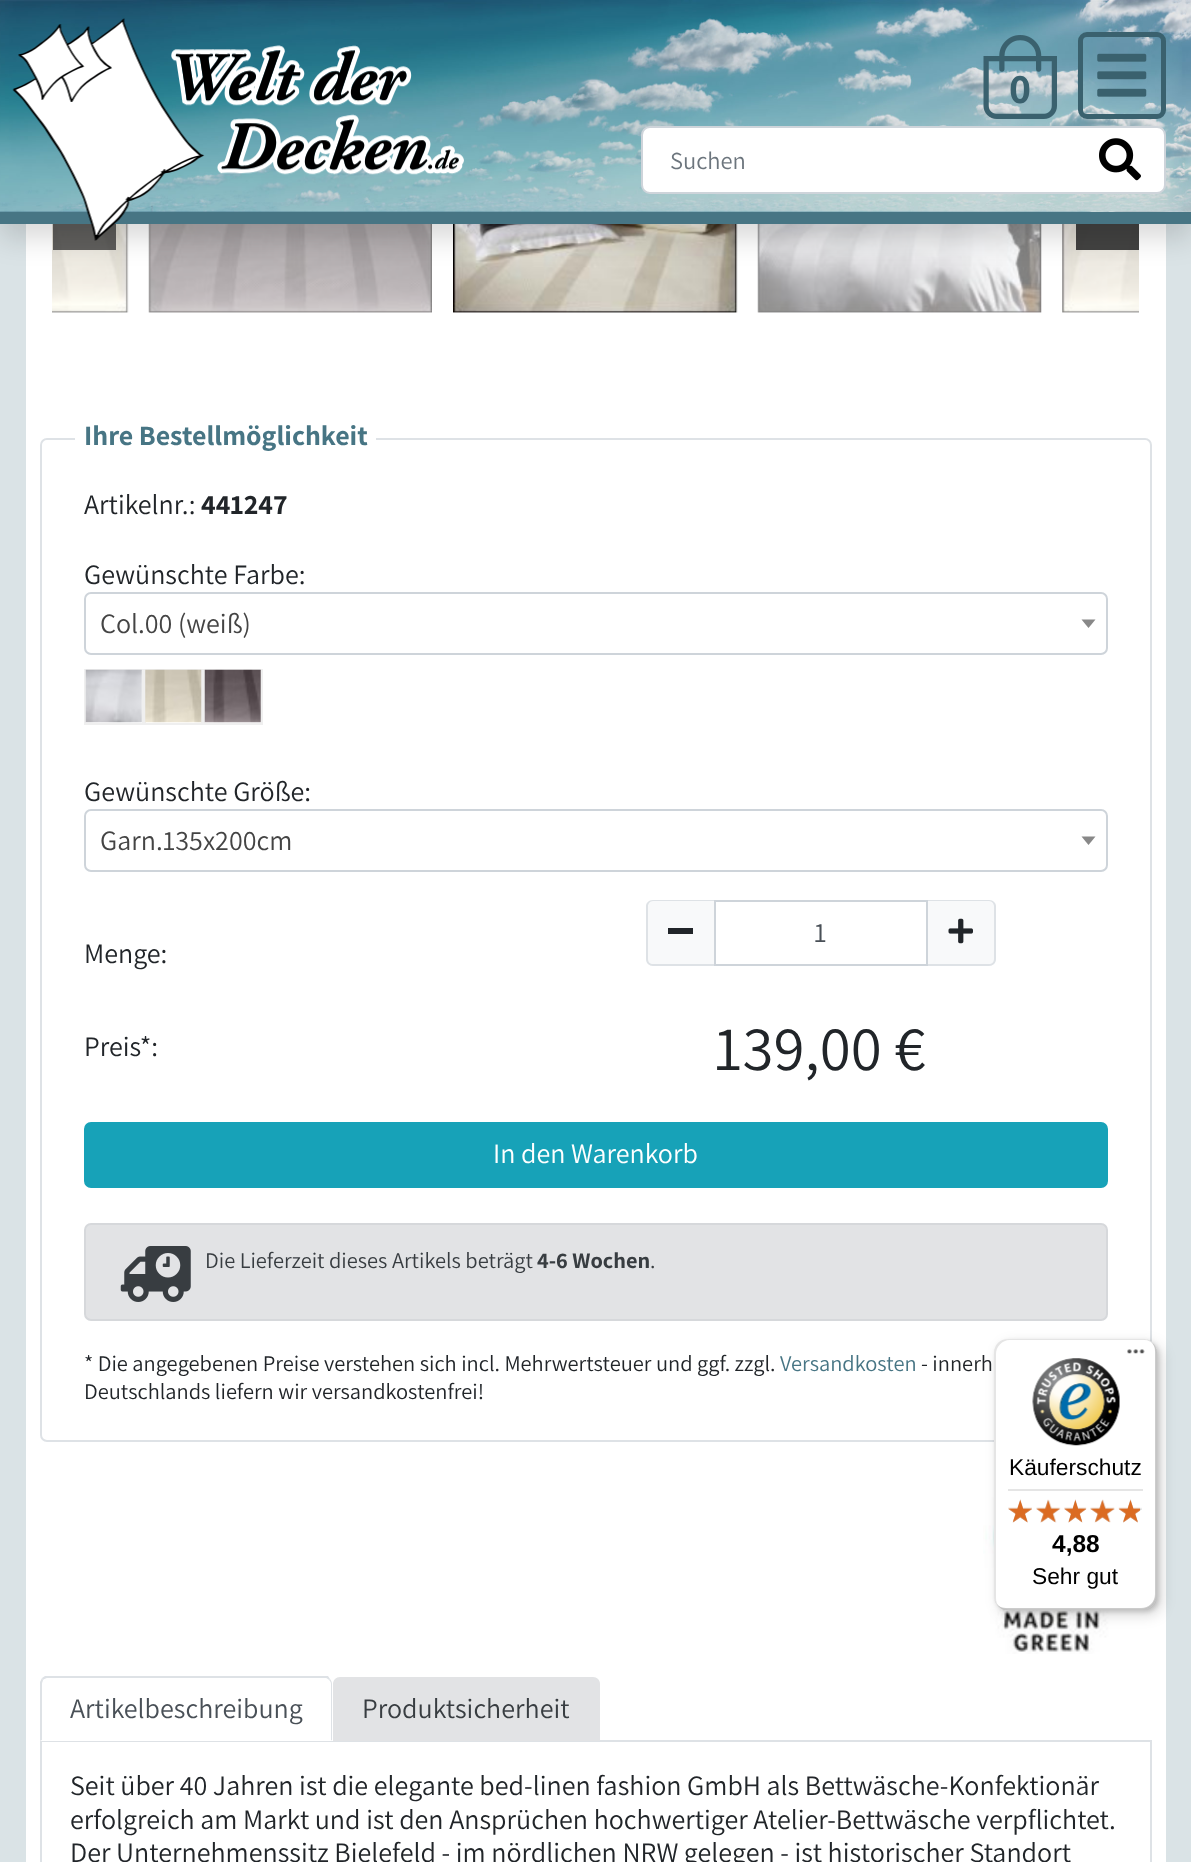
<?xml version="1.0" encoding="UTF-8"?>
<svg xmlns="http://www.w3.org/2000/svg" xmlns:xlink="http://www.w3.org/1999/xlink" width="1191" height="1862">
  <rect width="100%" height="100%" fill="#dae3e6" />
  <rect x="26" y="224" width="1140" height="1638" fill="#ffffff" />
  <image x="52" y="224" width="77" height="89" xlink:href="image7.png" />
  <image x="148" y="224" width="284" height="89" xlink:href="image8.png" />
  <image x="453" y="224" width="285" height="89" xlink:href="image9.png" />
  <image x="757" y="224" width="285" height="89" xlink:href="image10.png" />
  <image x="1062" y="224" width="77" height="89" xlink:href="image11.png" />
  <rect x="53" y="224" width="63" height="26" fill="#313131" fill-opacity="0.75" />
  <rect x="1076" y="224" width="63" height="26" fill="#313131" fill-opacity="0.9" />
  <rect y="14" width="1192" height="224" fill="#000000" fill-opacity="0.15" filter="blur(14px)" />
  <image x="0" y="0" width="1191" height="212" xlink:href="image5.png" />
  <image x="171" y="45" width="293" height="130" xlink:href="image2.png" />
  <rect y="212" width="1191" height="12" fill="#477584" />
  <image x="12" y="18" width="193" height="223" xlink:href="image1.png" />
  <rect x="1080.5" y="34.5" width="83" height="82" rx="6.5" fill="none" stroke="#3a616e" stroke-width="5" />
  <image x="1097" y="53" width="50" height="44" xlink:href="image4.png" />
  <rect x="642" y="127" width="523" height="66" rx="8" fill="#ffffff" stroke="#ced4da" stroke-width="2" />
  <image x="1099" y="138" width="42" height="43" xlink:href="image6.png" />
  <rect x="41" y="439" width="1110" height="1002" rx="6" fill="none" stroke="#dee2e6" stroke-width="2" />
  <path d="M 84 408 h 292 v 54 h -292 c -5 0 -9 -4 -9 -9 v -36 c 0 -5 4 -9 9 -9 z" fill="#ffffff" />
  <rect x="85" y="593" width="1022" height="61" rx="6" fill="none" stroke="#ced4da" stroke-width="2" />
  <path d="M 1081.5 619.5 h 14 l -7 8.5 z" fill="#888888" />
  <rect x="85" y="670" width="58" height="54" fill="none" stroke="#efefef" stroke-width="2" />
  <image x="85" y="669" width="57" height="54" xlink:href="image12.png" />
  <rect x="145" y="670" width="57" height="54" fill="none" stroke="#efefef" stroke-width="2" />
  <image x="145" y="669" width="57" height="54" xlink:href="image13.png" />
  <rect x="204" y="670" width="58" height="54" fill="none" stroke="#efefef" stroke-width="2" />
  <image x="204" y="669" width="57" height="54" xlink:href="image14.png" />
  <rect x="85" y="810" width="1022" height="61" rx="6" fill="none" stroke="#ced4da" stroke-width="2" />
  <path d="M 1081.5 836.5 h 14 l -7 8.5 z" fill="#888888" />
  <path d="M 653 900 h 61 v 66 h -61 c -4 0 -7 -3 -7 -7 v -52 c 0 -4 3 -7 7 -7 z" fill="#f8f9fa" />
  <path d="M 653 900 h 61 v 66 h -61 c -4 0 -7 -3 -7 -7 v -53 c 0 -3 3 -6 7 -6 z m 0 1 h 61 v 63 h -61 c -3 0 -5 -2 -5 -5 v -53 c 0 -2 2 -5 5 -5 z" fill="#dee2e6" fill-rule="evenodd" />
  <rect x="668" y="928" width="25" height="6" fill="#212529" />
  <rect x="715" y="901" width="212" height="64" fill="none" stroke="#ced4da" stroke-width="2" />
  <path d="M 928 900 h 61 c 4 0 7 3 7 7 v 52 c 0 4 -3 7 -7 7 h -61 z" fill="#f8f9fa" />
  <path d="M 928 900 h 61 c 4 0 7 3 7 6 v 53 c 0 4 -3 7 -7 7 h -61 z m 0 1 h 61 c 3 0 5 3 5 5 v 53 c 0 3 -2 5 -5 5 h -61 z" fill="#dee2e6" fill-rule="evenodd" />
  <image x="948" y="918" width="25" height="26" xlink:href="image15.png" />
  <rect x="85" y="1123" width="1022" height="64" rx="6" fill="#17a2b8" stroke="#17a2b8" stroke-width="2" />
  <rect x="85" y="1224" width="1022" height="96" rx="6" fill="#e2e3e5" stroke="#d6d8db" stroke-width="2" />
  <image x="120" y="1246" width="71" height="56" xlink:href="image16.png" />
  <image x="983" y="1469" width="139" height="185" xlink:href="image17.png" />
  <rect x="40" y="1740" width="1112" height="2" fill="#dee2e6" />
  <path d="M 47 1677 h 279 c 4 0 7 3 7 7 v 57 h -293 v -57 c 0 -4 3 -7 7 -7 z" fill="#ffffff" />
  <path d="M 47 1678 c -1 0 -3 1 -4 2 l -1 -2 l 3 -2 h 283 l 2 3 l -1 1 c -1 -1 -2 -2 -3 -2 z" fill="#dee2e6" />
  <path d="M 330 1679 c 1 1 2 3 2 5 v 57 l -1 -1 v -56 c 0 -2 -1 -3 -2 -4 z" fill="#dee2e6" />
  <path d="M 332 1741 h -292 l 2 -1 h 289 z" fill="#ffffff" />
  <path d="M 40 1682 l 2 -4 l 1 2 c 0 1 -1 2 -1 4 v 56 l -2 1 z" fill="#dee2e6" />
  <path d="M 340 1677 h 253 c 4 0 7 3 7 7 v 57 h -267 v -57 c 0 -4 3 -7 7 -7 z" fill="#e2e3e5" />
  <rect x="1150" y="1741" width="2" height="121" fill="#dee2e6" />
  <rect x="40" y="1741" width="2" height="121" fill="#dee2e6" />
  <rect x="999" y="1344" width="163" height="271" rx="14" fill="#000000" fill-opacity="0.15" filter="blur(7px)" />
  <rect x="996" y="1341" width="163" height="271" rx="14" fill="#000000" fill-opacity="0.15" filter="blur(2px)" />
  <rect x="994" y="1339" width="163" height="271" rx="14" fill="#ffffff" />
  <path d="M 1010 1340 h 134 c 4 0 8 2 10 5 c -2 -4 -6 -6 -11 -6 h -135 c -8 0 -14 6 -14 14 v 243 c 0 5 2 9 6 11 c -3 -2 -4 -6 -4 -9 v -244 c 0 -7 6 -14 14 -14 z" fill="#000000" fill-opacity="0.1" />
  <path d="M 997 1604 c 2 4 6 6 11 6 h 135 c 8 0 14 -6 14 -14 v -243 c 0 -4 -2 -8 -5 -10 c 2 2 3 5 3 8 v 243 c 0 8 -6 14 -14 14 h -135 c -3 0 -7 -1 -9 -4 z" fill="#000000" fill-opacity="0.2" />
  <path d="M 999 1606 c 2 3 5 4 9 4 h 135 c 8 0 14 -6 14 -14 v -243 c 0 -5 -2 -9 -6 -11 c 3 2 5 6 5 10 v 243 c 0 8 -7 14 -14 14 h -135 c -3 0 -6 -1 -8 -3 z" fill="#323232" fill-opacity="0.2" />
  <path d="M 999 1606 c 2 3 5 4 9 4 h 135 c 8 0 14 -6 14 -14 v -243 c 0 -4 -1 -7 -4 -9 c 2 2 3 5 3 8 v 243 c 0 8 -6 14 -14 14 h -135 c -3 0 -6 -1 -8 -3 z" fill="#ffffff" fill-opacity="0.3" />
  <image x="1127" y="1349" width="18" height="5" xlink:href="image18.png" />
  <image x="1032" y="1358" width="88" height="88" xlink:href="image19.png" />
  <rect x="1008" y="1489" width="135" height="2" fill="#e5e5e5" />
  <image x="1008" y="1499" width="24" height="24" xlink:href="image20.png" />
  <image x="1036" y="1500" width="24" height="23" xlink:href="image21.png" />
  <image x="1064" y="1499" width="22" height="24" xlink:href="image22.png" />
  <image x="1090" y="1500" width="25" height="22" xlink:href="image23.png" />
  <image x="1119" y="1499" width="23" height="24" xlink:href="image24.png" />
  <image x="1008" y="1499" width="24" height="24" xlink:href="image25.png" />
  <image x="1036" y="1499" width="25" height="24" xlink:href="image26.png" />
  <image x="1064" y="1499" width="23" height="24" xlink:href="image27.png" />
  <image x="1090" y="1499" width="25" height="24" xlink:href="image28.png" />
  <image x="1118" y="1499" width="22" height="24" xlink:href="image29.png" />
  <text x="1009" y="103" style="font-family: Assistant; font-size: 42px; font-weight: bold; fill: #3a616e">0</text>
  <image x="983" y="35" width="74" height="84" xlink:href="image3.png" />
  <text x="670" y="169" style="font-family: Assistant; font-size: 24.5px; fill: #6c757d">Suchen</text>
  <text x="84" y="445" style="font-family: Assistant; font-size: 28px; font-weight: bold; fill: #477584">Ihre Bestellmöglichkeit</text>
  <text x="84" y="514" style="font-family: Assistant; font-size: 28px; fill: #212529">Artikelnr.:</text>
  <text x="201" y="514" style="font-family: Assistant; font-size: 28px; font-weight: bold; fill: #212529">441247</text>
  <text x="84" y="584" style="font-family: Assistant; font-size: 28px; fill: #212529">Gewünschte Farbe:</text>
  <text x="100" y="633" style="font-family: Assistant; font-size: 28px; fill: #444444">Col.00 (weiß)</text>
  <text x="84" y="801" style="font-family: Assistant; font-size: 28px; fill: #212529">Gewünschte Größe:</text>
  <text x="100" y="850" style="font-family: Assistant; font-size: 28px; fill: #444444">Garn.135x200cm</text>
  <text x="814" y="942" style="font-family: Assistant; font-size: 28px; fill: #495057">1</text>
  <text x="84" y="963" style="font-family: Assistant; font-size: 28px; fill: #212529">Menge:</text>
  <text x="84" y="1056" style="font-family: Assistant; font-size: 28px; fill: #212529">Preis*:</text>
  <text x="714" y="1070" style="font-family: Assistant; font-size: 63px; fill: #212529">139,00 €</text>
  <text x="493" y="1163" style="font-family: Assistant; font-size: 28px; fill: #ffffff">In den Warenkorb</text>
  <text x="205" y="1268" style="font-family: Assistant; font-size: 22.4px; fill: #383d41">Die Lieferzeit dieses Artikels beträgt</text>
  <text x="537" y="1268" style="font-family: Assistant; font-size: 22.4px; font-weight: bold; fill: #383d41">4-6 Wochen</text>
  <text x="650" y="1268" style="font-family: Assistant; font-size: 22.4px; fill: #383d41">.</text>
  <text x="84" y="1371" style="font-family: Assistant; font-size: 22.4px; fill: #212529">* Die angegebenen Preise verstehen sich incl. Mehrwertsteuer und ggf. zzgl.</text>
  <text x="780" y="1371" style="font-family: Assistant; font-size: 22.4px; fill: #477584">Versandkosten</text>
  <text x="921" y="1371" style="font-family: Assistant; font-size: 22.4px; fill: #212529">- innerh</text>
  <text x="84" y="1399" style="font-family: Assistant; font-size: 22.4px; fill: #212529">Deutschlands liefern wir versandkostenfrei!</text>
  <text x="70" y="1718" style="font-family: Assistant; font-size: 28px; fill: #495057">Artikelbeschreibung</text>
  <text x="362" y="1718" style="font-family: Assistant; font-size: 28px; fill: #383d41">Produktsicherheit</text>
  <text x="70" y="1795" style="font-family: Assistant; font-size: 28px; fill: #212529">Seit über 40 Jahren ist die elegante bed-linen fashion GmbH als Bettwäsche-Konfektionär</text>
  <text x="70" y="1829" style="font-family: Assistant; font-size: 28px; fill: #212529">erfolgreich am Markt und ist den Ansprüchen hochwertiger Atelier-Bettwäsche verpflichtet.</text>
  <text x="70" y="1862" style="font-family: Assistant; font-size: 28px; fill: #212529">Der Unternehmenssitz Bielefeld - im nördlichen NRW gelegen - ist historischer Standort</text>
  <text x="1009" y="1475" style="font-family: Liberation Sans; font-size: 22.75px; fill: #000000">Käuferschutz</text>
  <text x="1052" y="1552" style="font-family: Liberation Sans; font-size: 24.5px; font-weight: bold; fill: #000000">4,88</text>
  <text x="1032" y="1584" style="font-family: Liberation Sans; font-size: 22.75px; fill: #000000">Sehr gut</text>
</svg>
